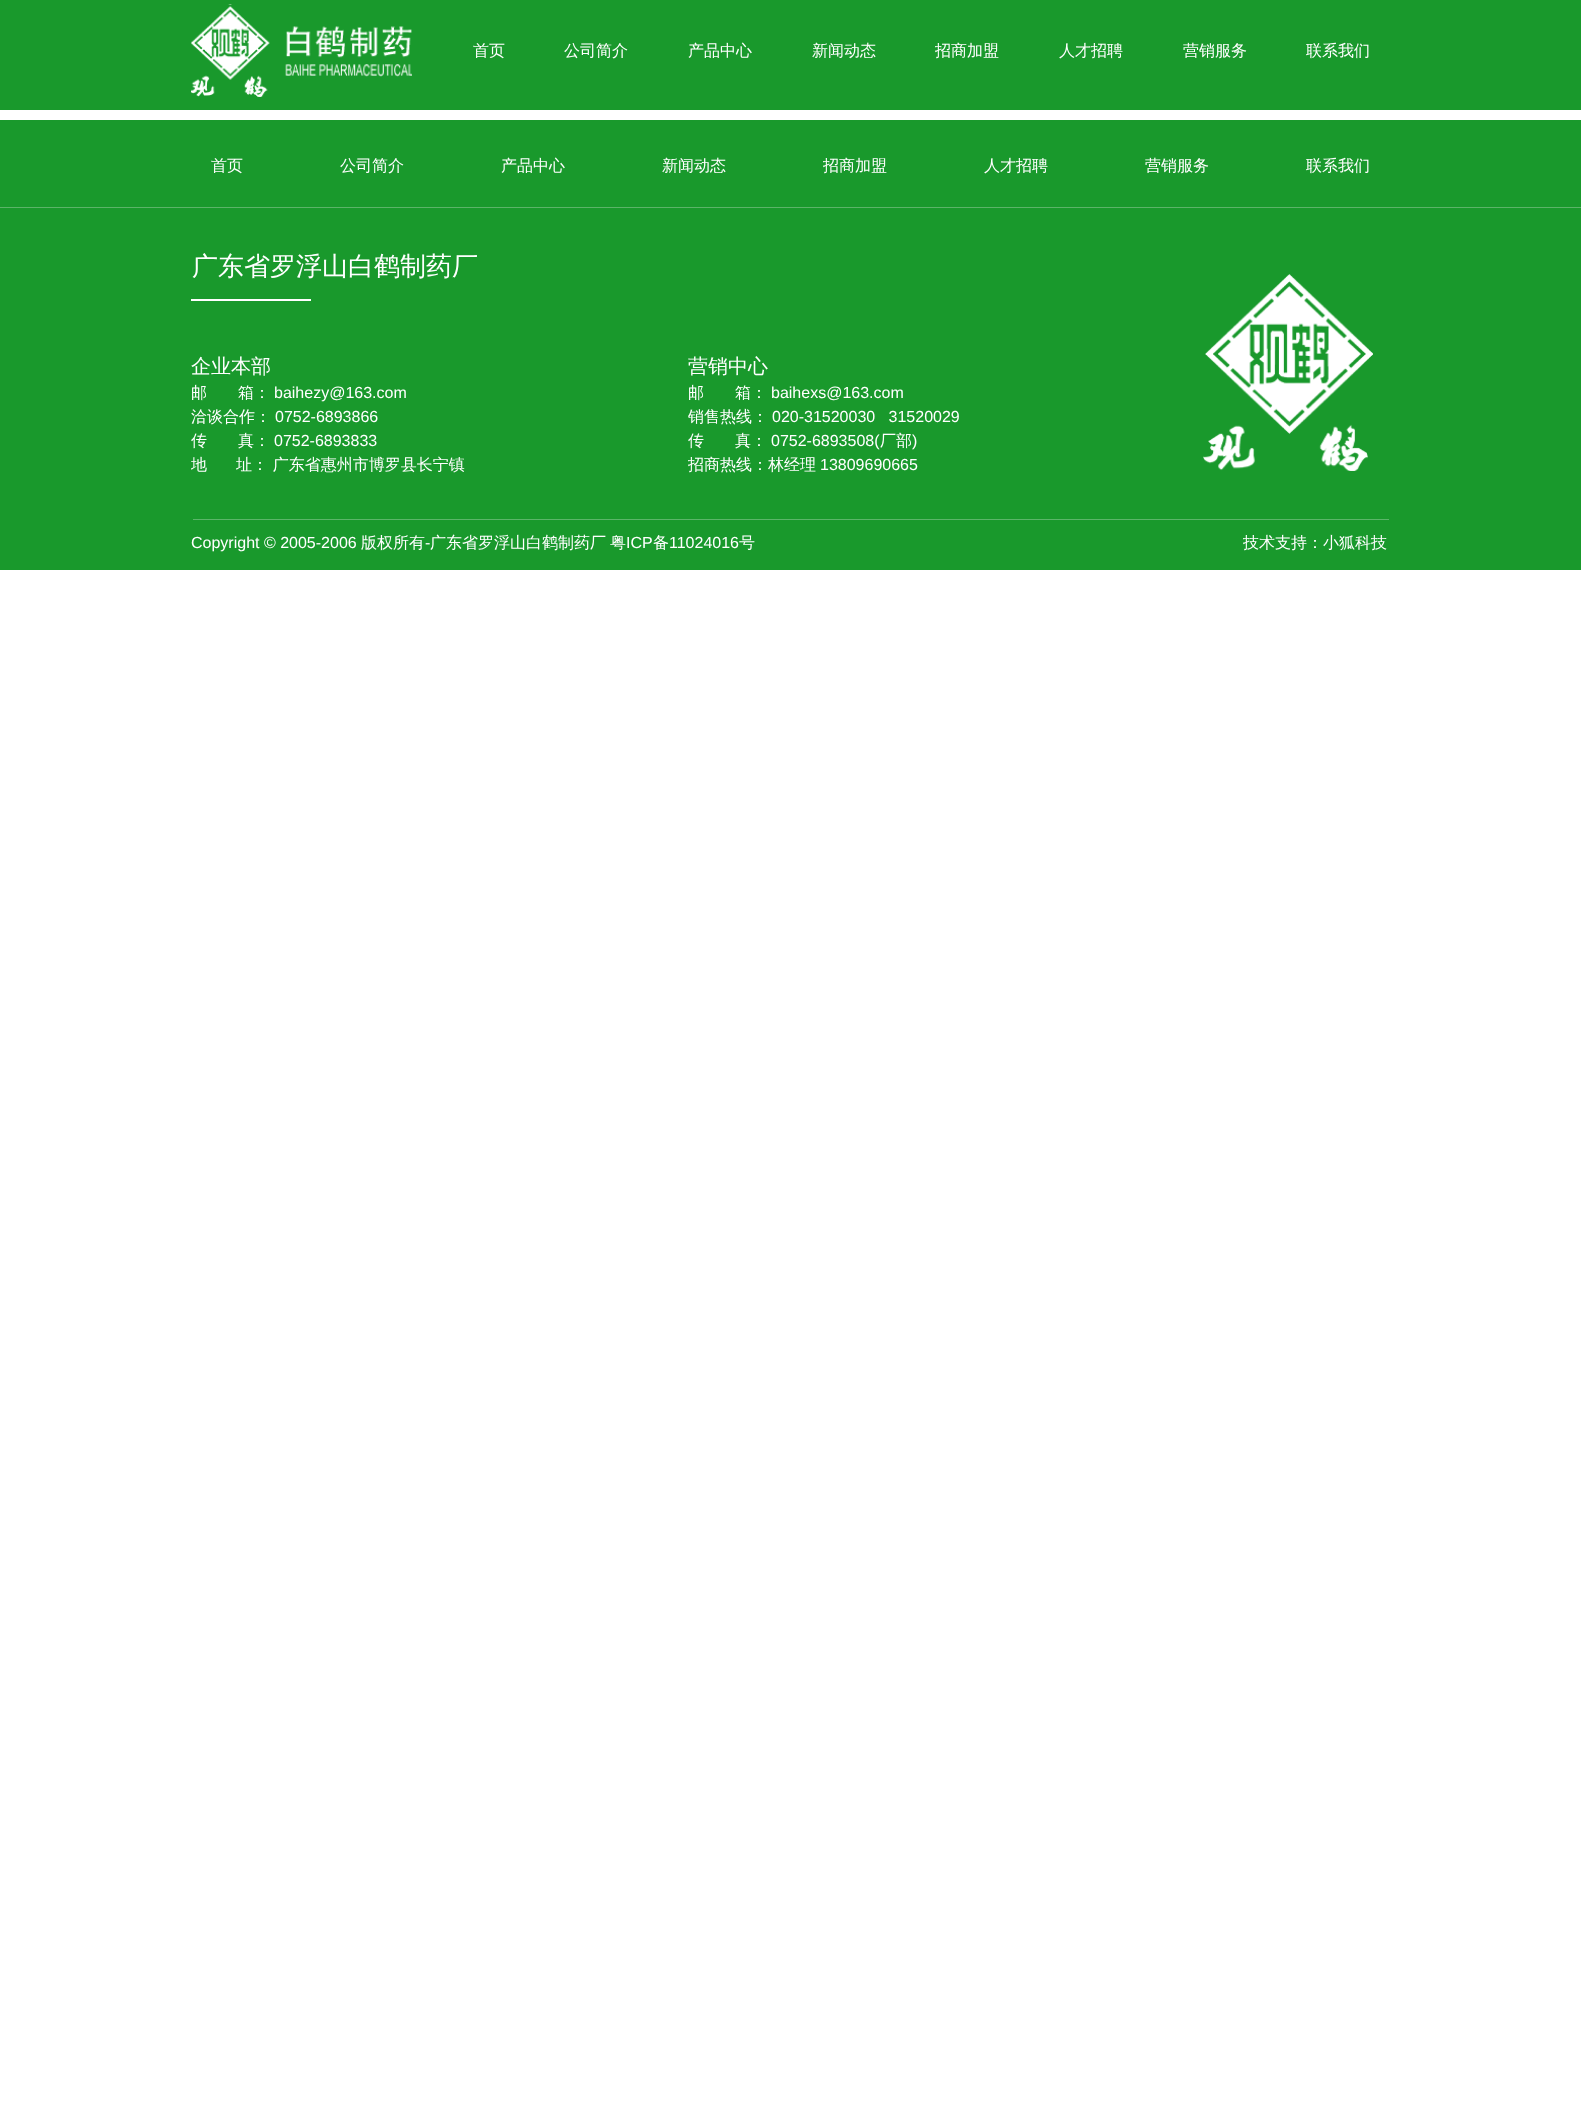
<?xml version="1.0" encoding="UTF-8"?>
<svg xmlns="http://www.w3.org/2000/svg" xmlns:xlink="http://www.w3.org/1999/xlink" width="1581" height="2126">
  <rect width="100%" height="100%" fill="#ffffff" />
  <rect width="1581" height="110" fill="#19992c" />
  <image x="191" y="4" width="221" height="93" xlink:href="image1.png" />
  <image x="0" y="120" width="1581" height="450" xlink:href="image2.png" />
  <rect x="191" y="299" width="120" height="2" fill="#ffffff" />
  <image x="1203" y="274" width="170" height="197" xlink:href="image3.png" />
  <rect x="193" y="519" width="1196" height="1" fill="#5bb569" />
  <text x="473" y="56" style="font-family: WenQuanYi Zen Hei; font-size: 16px; font-weight: 500; fill: #ffffff">首页</text>
  <text x="564" y="56" style="font-family: WenQuanYi Zen Hei; font-size: 16px; font-weight: 500; fill: #ffffff">公司简介</text>
  <text x="688" y="56" style="font-family: WenQuanYi Zen Hei; font-size: 16px; font-weight: 500; fill: #ffffff">产品中心</text>
  <text x="812" y="56" style="font-family: WenQuanYi Zen Hei; font-size: 16px; font-weight: 500; fill: #ffffff">新闻动态</text>
  <text x="935" y="56" style="font-family: WenQuanYi Zen Hei; font-size: 16px; font-weight: 500; fill: #ffffff">招商加盟</text>
  <text x="1059" y="56" style="font-family: WenQuanYi Zen Hei; font-size: 16px; font-weight: 500; fill: #ffffff">人才招聘</text>
  <text x="1183" y="56" style="font-family: WenQuanYi Zen Hei; font-size: 16px; font-weight: 500; fill: #ffffff">营销服务</text>
  <text x="1306" y="56" style="font-family: WenQuanYi Zen Hei; font-size: 16px; font-weight: 500; fill: #ffffff">联系我们</text>
  <text x="211" y="171" style="font-family: WenQuanYi Zen Hei; font-size: 16px; font-weight: 500; fill: #ffffff">首页</text>
  <text x="340" y="171" style="font-family: WenQuanYi Zen Hei; font-size: 16px; font-weight: 500; fill: #ffffff">公司简介</text>
  <text x="501" y="171" style="font-family: WenQuanYi Zen Hei; font-size: 16px; font-weight: 500; fill: #ffffff">产品中心</text>
  <text x="662" y="171" style="font-family: WenQuanYi Zen Hei; font-size: 16px; font-weight: 500; fill: #ffffff">新闻动态</text>
  <text x="823" y="171" style="font-family: WenQuanYi Zen Hei; font-size: 16px; font-weight: 500; fill: #ffffff">招商加盟</text>
  <text x="984" y="171" style="font-family: WenQuanYi Zen Hei; font-size: 16px; font-weight: 500; fill: #ffffff">人才招聘</text>
  <text x="1145" y="171" style="font-family: WenQuanYi Zen Hei; font-size: 16px; font-weight: 500; fill: #ffffff">营销服务</text>
  <text x="1306" y="171" style="font-family: WenQuanYi Zen Hei; font-size: 16px; font-weight: 500; fill: #ffffff">联系我们</text>
  <text x="192" y="275" style="font-family: WenQuanYi Zen Hei; font-size: 26px; font-weight: 500; fill: #ffffff">广东省罗浮山白鹤制药厂</text>
  <text x="191" y="373" style="font-family: WenQuanYi Zen Hei; font-size: 20px; font-weight: 500; fill: #ffffff">企业本部</text>
  <text x="191" y="398" style="font-family: WenQuanYi Zen Hei; font-size: 16px; font-weight: 500; fill: #ffffff">邮</text>
  <text x="238" y="398" style="font-family: WenQuanYi Zen Hei; font-size: 16px; font-weight: 500; fill: #ffffff">箱：</text>
  <text x="274" y="398" style="font-family: Liberation Sans; font-size: 16px; fill: #ffffff">baihezy@163.com</text>
  <text x="191" y="422" style="font-family: WenQuanYi Zen Hei; font-size: 16px; font-weight: 500; fill: #ffffff">洽谈合作：</text>
  <text x="275" y="422" style="font-family: Liberation Sans; font-size: 16px; fill: #ffffff">0752-6893866</text>
  <text x="191" y="446" style="font-family: WenQuanYi Zen Hei; font-size: 16px; font-weight: 500; fill: #ffffff">传</text>
  <text x="238" y="446" style="font-family: WenQuanYi Zen Hei; font-size: 16px; font-weight: 500; fill: #ffffff">真：</text>
  <text x="274" y="446" style="font-family: Liberation Sans; font-size: 16px; fill: #ffffff">0752-6893833</text>
  <text x="191" y="470" style="font-family: WenQuanYi Zen Hei; font-size: 16px; font-weight: 500; fill: #ffffff">地</text>
  <text x="236" y="470" style="font-family: WenQuanYi Zen Hei; font-size: 16px; font-weight: 500; fill: #ffffff">址： 广东省惠州市博罗县长宁镇</text>
  <text x="688" y="373" style="font-family: WenQuanYi Zen Hei; font-size: 20px; font-weight: 500; fill: #ffffff">营销中心</text>
  <text x="688" y="398" style="font-family: WenQuanYi Zen Hei; font-size: 16px; font-weight: 500; fill: #ffffff">邮</text>
  <text x="735" y="398" style="font-family: WenQuanYi Zen Hei; font-size: 16px; font-weight: 500; fill: #ffffff">箱：</text>
  <text x="771" y="398" style="font-family: Liberation Sans; font-size: 16px; fill: #ffffff">baihexs@163.com</text>
  <text x="688" y="422" style="font-family: WenQuanYi Zen Hei; font-size: 16px; font-weight: 500; fill: #ffffff">销售热线：</text>
  <text x="772" y="422" style="font-family: Liberation Sans; font-size: 16px; fill: #ffffff" xml:space="preserve">020-31520030   31520029</text>
  <text x="688" y="446" style="font-family: WenQuanYi Zen Hei; font-size: 16px; font-weight: 500; fill: #ffffff">传</text>
  <text x="735" y="446" style="font-family: WenQuanYi Zen Hei; font-size: 16px; font-weight: 500; fill: #ffffff">真：</text>
  <text x="771" y="446" style="font-family: Liberation Sans; font-size: 16px; fill: #ffffff">0752-6893508(</text>
  <text x="880" y="446" style="font-family: WenQuanYi Zen Hei; font-size: 16px; font-weight: 500; fill: #ffffff">厂部</text>
  <text x="912" y="446" style="font-family: Liberation Sans; font-size: 16px; fill: #ffffff">)</text>
  <text x="688" y="470" style="font-family: WenQuanYi Zen Hei; font-size: 16px; font-weight: 500; fill: #ffffff">招商热线：林经理</text>
  <text x="820" y="470" style="font-family: Liberation Sans; font-size: 16px; fill: #ffffff">13809690665</text>
  <text x="191" y="548" style="font-family: Liberation Sans; font-size: 16px; fill: #ffffff">Copyright © 2005-2006</text>
  <text x="361" y="548" style="font-family: WenQuanYi Zen Hei; font-size: 16px; font-weight: 500; fill: #ffffff">版权所有</text>
  <text x="425" y="548" style="font-family: Liberation Sans; font-size: 16px; fill: #ffffff">-</text>
  <text x="430" y="548" style="font-family: WenQuanYi Zen Hei; font-size: 16px; font-weight: 500; fill: #ffffff">广东省罗浮山白鹤制药厂</text>
  <text x="610" y="548" style="font-family: WenQuanYi Zen Hei; font-size: 16px; font-weight: 500; fill: #ffffff">粤</text>
  <text x="626" y="548" style="font-family: Liberation Sans; font-size: 16px; fill: #ffffff">ICP</text>
  <text x="653" y="548" style="font-family: WenQuanYi Zen Hei; font-size: 16px; font-weight: 500; fill: #ffffff">备</text>
  <text x="669" y="548" style="font-family: Liberation Sans; font-size: 16px; fill: #ffffff">11024016</text>
  <text x="739" y="548" style="font-family: WenQuanYi Zen Hei; font-size: 16px; font-weight: 500; fill: #ffffff">号</text>
  <text x="1243" y="548" style="font-family: WenQuanYi Zen Hei; font-size: 16px; font-weight: 500; fill: #ffffff">技术支持：小狐科技</text>
</svg>
